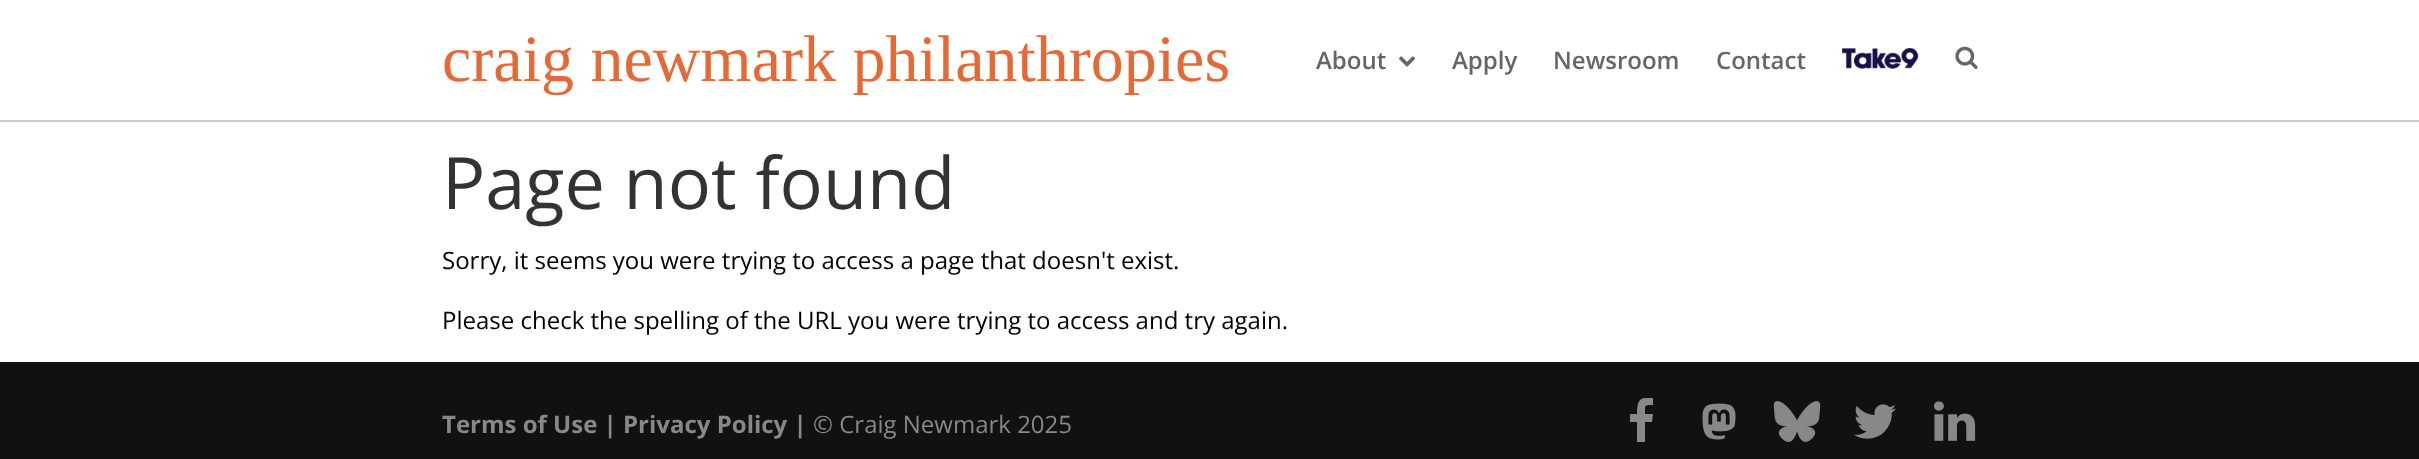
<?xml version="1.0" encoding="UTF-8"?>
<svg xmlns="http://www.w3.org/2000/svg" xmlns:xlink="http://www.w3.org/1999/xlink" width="2419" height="459">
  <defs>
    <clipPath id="clip1"><rect x="1617" y="398" width="48" height="48" /></clipPath>
  </defs>
  <rect width="100%" height="100%" fill="#ffffff" />
  <rect y="120" width="2419" height="2" fill="#cccccc" />
  <image x="1399" y="56" width="16" height="11" xlink:href="image1.png" />
  <image x="1842" y="48" width="77" height="21" xlink:href="image2.png" />
  <image x="1955" y="46" width="23" height="23" xlink:href="image3.png" />
  <rect y="362" width="2419" height="97" fill="#111111" />
  <g clip-path="url(#clip1)">
    <path d="M 1653 398 v 7 c -9 0 -8 0 -8 9 h 8 l -1 8 h -7 v 20 h -8 v -20 h -7 v -8 h 7 c 0 -13 2 -18 16 -16 z" fill="#888888" />
  </g>
  <image x="1702" y="403" width="34" height="37" xlink:href="image4.png" />
  <image x="1773" y="401" width="48" height="41" xlink:href="image5.png" />
  <image x="1854" y="404" width="42" height="35" xlink:href="image6.png" />
  <image x="1934" y="401" width="42" height="40" xlink:href="image7.png" />
  <text x="442" y="81" style="font-family: Liberation Serif; font-size: 66px; fill: #e56934">craig newmark philanthropies</text>
  <text x="1316" y="69" style="font-family: Open Sans; font-size: 24px; font-weight: 600; fill: #666666">About</text>
  <text x="1452" y="69" style="font-family: Open Sans; font-size: 24px; font-weight: 600; fill: #666666">Apply</text>
  <text x="1553" y="69" style="font-family: Open Sans; font-size: 24px; font-weight: 600; fill: #666666">Newsroom</text>
  <text x="1716" y="69" style="font-family: Open Sans; font-size: 24px; font-weight: 600; fill: #666666">Contact</text>
  <text x="442" y="209" style="font-family: Open Sans; font-size: 72px; fill: #333333">Page not found</text>
  <text x="442" y="269" style="font-family: Open Sans; font-size: 24px; fill: #000000">Sorry, it seems you were trying to access a page that doesn't exist.</text>
  <text x="442" y="329" style="font-family: Open Sans; font-size: 24px; fill: #000000">Please check the spelling of the URL you were trying to access and try again.</text>
  <text x="442" y="433" style="font-family: Open Sans; font-size: 24px; font-weight: bold; fill: #888888">Terms of Use | Privacy Policy |</text>
  <text x="813" y="433" style="font-family: Open Sans; font-size: 24px; fill: #888888">© Craig Newmark 2025</text>
</svg>
